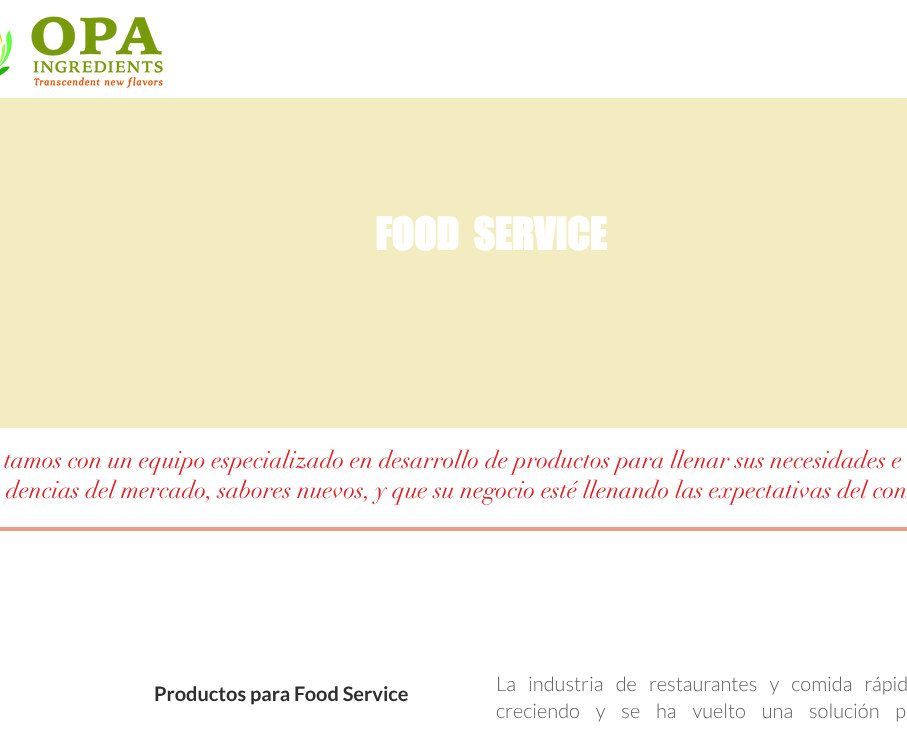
<?xml version="1.0" encoding="UTF-8"?>
<svg xmlns="http://www.w3.org/2000/svg" xmlns:xlink="http://www.w3.org/1999/xlink" width="907" height="734">
  <rect width="100%" height="100%" fill="#ffffff" />
  <image x="0" y="16" width="163" height="72" xlink:href="image1.png" />
  <rect y="98" width="907" height="330" fill="#f4ecc1" />
  <rect y="527" width="907" height="4" fill="#e99f86" />
  <text x="375" y="250" style="font-family: 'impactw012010'; font-size: 41px; font-weight: bold; fill: #ffffff" xml:space="preserve">FOOD  SERVICE</text>
  <text x="4" y="468" style="font-family: didot; font-size: 24px; fill: #e21c21">tamos con un equipo especializado en desarrollo de productos para llenar sus necesidades e</text>
  <text x="6" y="498" style="font-family: didot; font-size: 24px; fill: #e21c21">dencias del mercado, sabores nuevos, y que su negocio esté llenando las expectativas del con</text>
  <text x="154" y="701" style="font-family: Lato; font-size: 20px; font-weight: bold; fill: #2f2e2e">Productos para Food Service</text>
  <text x="496" y="691" word-spacing="8.25" style="font-family: Lato; font-size: 20px; font-weight: 300; fill: #605e5e">La industria de restaurantes y comida rápid</text>
  <text x="496" y="718" word-spacing="12" style="font-family: Lato; font-size: 20px; font-weight: 300; fill: #605e5e">creciendo y se ha vuelto una solución p</text>
</svg>
